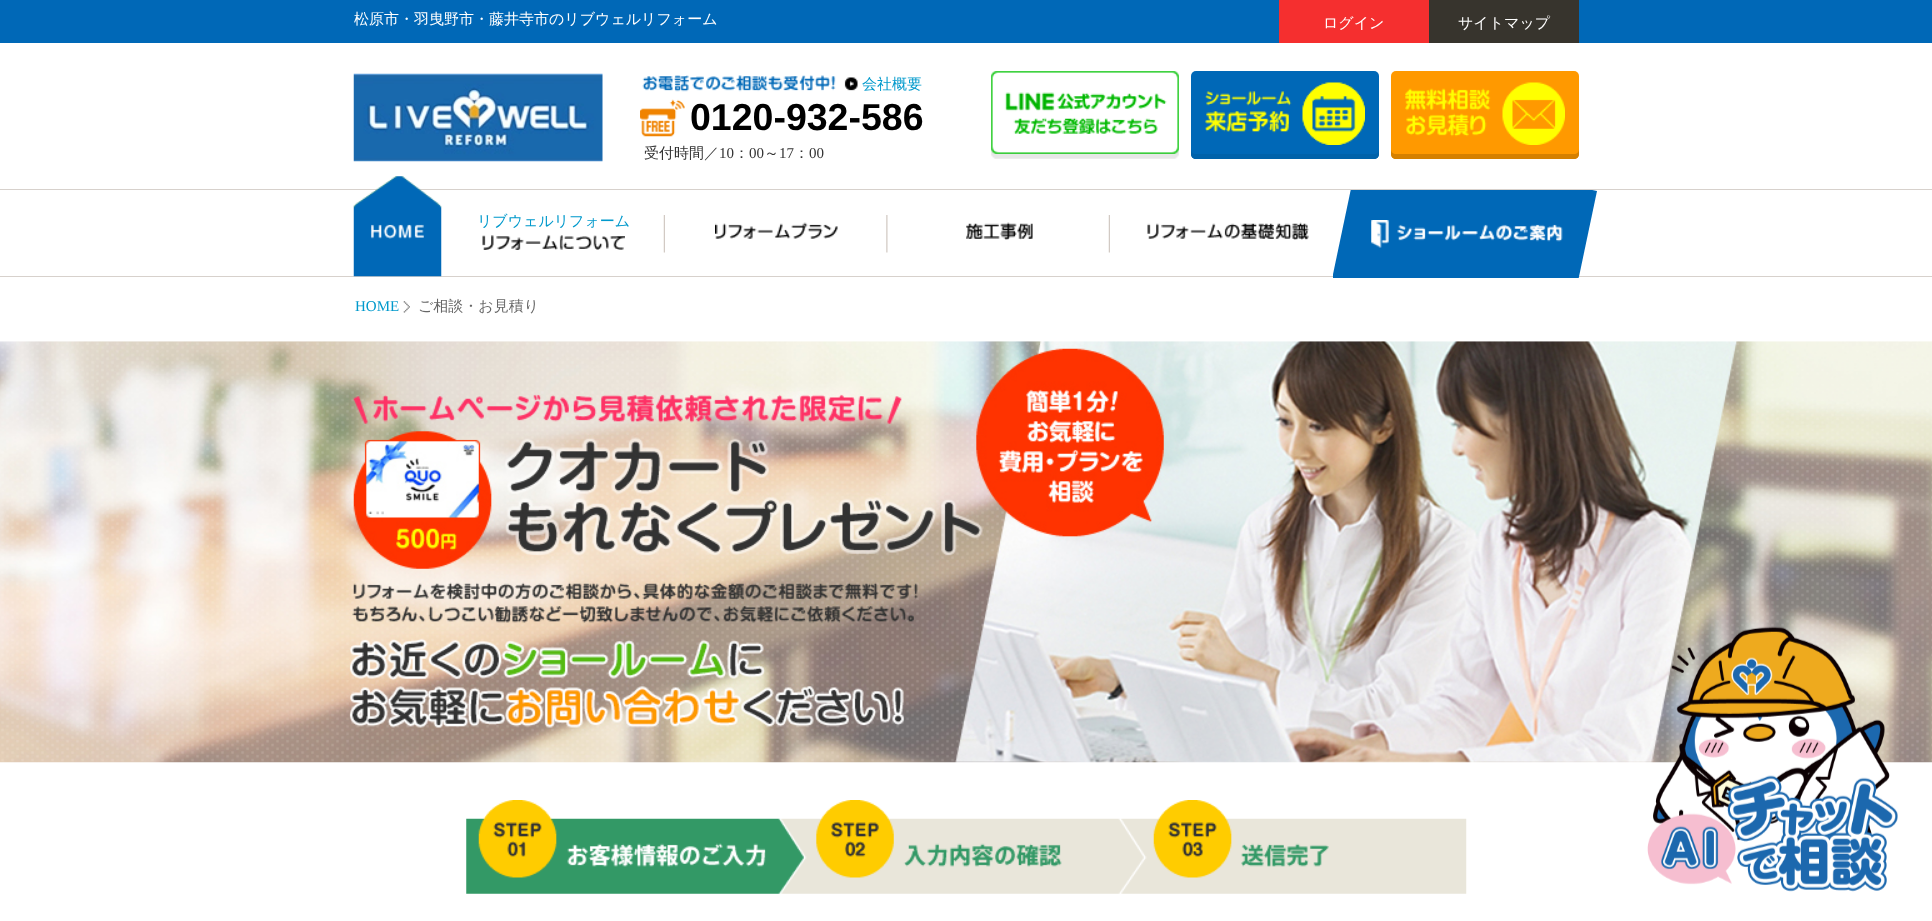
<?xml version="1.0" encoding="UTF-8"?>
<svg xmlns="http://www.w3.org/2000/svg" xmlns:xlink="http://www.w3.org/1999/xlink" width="1932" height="921">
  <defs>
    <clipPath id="clip1"><rect x="1333" y="190" width="266" height="88" /></clipPath>
  </defs>
  <rect width="100%" height="100%" fill="#ffffff" />
  <rect width="1932" height="43" fill="#0068b7" />
  <rect x="1279" width="150" height="43" fill="#f52f2f" />
  <rect x="1429" width="150" height="43" fill="#37342d" />
  <image x="353" y="73" width="250" height="89" xlink:href="image1.png" />
  <image x="642" y="75" width="216" height="17" xlink:href="image2.png" />
  <image x="640" y="99" width="45" height="38" xlink:href="image3.png" />
  <image x="991" y="71" width="188" height="88" xlink:href="image4.png" />
  <rect x="1191" y="71" width="188" height="88" rx="5" fill="#0068b7" />
  <path d="M 1191 149 v 5 c 0 3 2 5 5 5 h 178 c 3 0 5 -2 5 -5 v -5 c 0 3 -2 5 -5 5 h -178 c -3 0 -5 -2 -5 -5 z" fill="#0062aa" />
  <image x="1205" y="82" width="160" height="63" xlink:href="image5.png" />
  <rect x="1391" y="71" width="188" height="88" rx="5" fill="#ff9900" />
  <path d="M 1391 149 v 5 c 0 3 2 5 5 5 h 178 c 3 0 5 -2 5 -5 v -5 c 0 3 -2 5 -5 5 h -178 c -3 0 -5 -2 -5 -5 z" fill="#d58000" />
  <image x="1405" y="82" width="160" height="63" xlink:href="image6.png" />
  <rect y="189" width="1932" height="1" fill="#d7d1cc" />
  <rect y="276" width="1932" height="1" fill="#d7d1cc" />
  <image x="353" y="176" width="89" height="101" xlink:href="image7.png" />
  <image x="663" y="215" width="2" height="38" xlink:href="image8.png" />
  <image x="482" y="235" width="143" height="15" xlink:href="image9.png" />
  <image x="886" y="215" width="2" height="38" xlink:href="image10.png" />
  <image x="715" y="222" width="123" height="17" xlink:href="image11.png" />
  <image x="1108" y="215" width="2" height="38" xlink:href="image8.png" />
  <image x="966" y="222" width="67" height="18" xlink:href="image12.png" />
  <image x="1147" y="222" width="162" height="18" xlink:href="image13.png" />
  <g clip-path="url(#clip1)">
    <path d="M 1361 141 l 236 50 l -29 138 l -236 -50 z" fill="#0068b7" />
  </g>
  <image x="1371" y="220" width="192" height="28" xlink:href="image14.png" />
  <image x="403" y="301" width="7" height="12" xlink:href="image15.png" />
  <image x="0" y="341" width="1932" height="422" xlink:href="image16.png" />
  <image x="466" y="800" width="1001" height="94" xlink:href="image17.png" />
  <image x="1647" y="626" width="251" height="266" xlink:href="image18.png" />
  <text x="354" y="24" style="font-family: WenQuanYi Zen Hei; font-size: 15px; font-weight: 500; fill: #ffffff">松原市・羽曳野市・藤井寺市のリブウェルリフォーム</text>
  <text x="1323" y="28" style="font-family: WenQuanYi Zen Hei; font-size: 15px; font-weight: 500; fill: #ffffff">ログイン</text>
  <text x="1458" y="28" style="font-family: WenQuanYi Zen Hei; font-size: 15px; font-weight: 500; fill: #ffffff">サイトマップ</text>
  <text x="862" y="89" style="font-family: WenQuanYi Zen Hei; font-size: 15px; font-weight: 500; fill: #0099cc">会社概要</text>
  <text x="690" y="130" style="font-family: Liberation Sans; font-size: 37.5px; font-weight: bold; fill: #000000">0120-932-586</text>
  <text x="644" y="158" style="font-family: WenQuanYi Zen Hei; font-size: 15px; font-weight: 500; fill: #333333">受付時間／</text>
  <text x="719" y="158" style="font-family: Liberation Serif; font-size: 15px; fill: #333333">10</text>
  <text x="734" y="158" style="font-family: WenQuanYi Zen Hei; font-size: 15px; font-weight: 500; fill: #333333">：</text>
  <text x="749" y="158" style="font-family: Liberation Serif; font-size: 15px; fill: #333333">00</text>
  <text x="764" y="158" style="font-family: WenQuanYi Zen Hei; font-size: 15px; font-weight: 500; fill: #333333">～</text>
  <text x="779" y="158" style="font-family: Liberation Serif; font-size: 15px; fill: #333333">17</text>
  <text x="794" y="158" style="font-family: WenQuanYi Zen Hei; font-size: 15px; font-weight: 500; fill: #333333">：</text>
  <text x="809" y="158" style="font-family: Liberation Serif; font-size: 15px; fill: #333333">00</text>
  <text x="477" y="226" style="font-family: WenQuanYi Zen Hei; font-size: 15px; font-weight: 500; fill: #0099cc">リブウェルリフォーム</text>
  <text x="355" y="311" style="font-family: Liberation Serif; font-size: 15px; fill: #0099cc">HOME</text>
  <text x="418" y="311" style="font-family: WenQuanYi Zen Hei; font-size: 15px; font-weight: 500; fill: #666666">ご相談・お見積り</text>
</svg>
